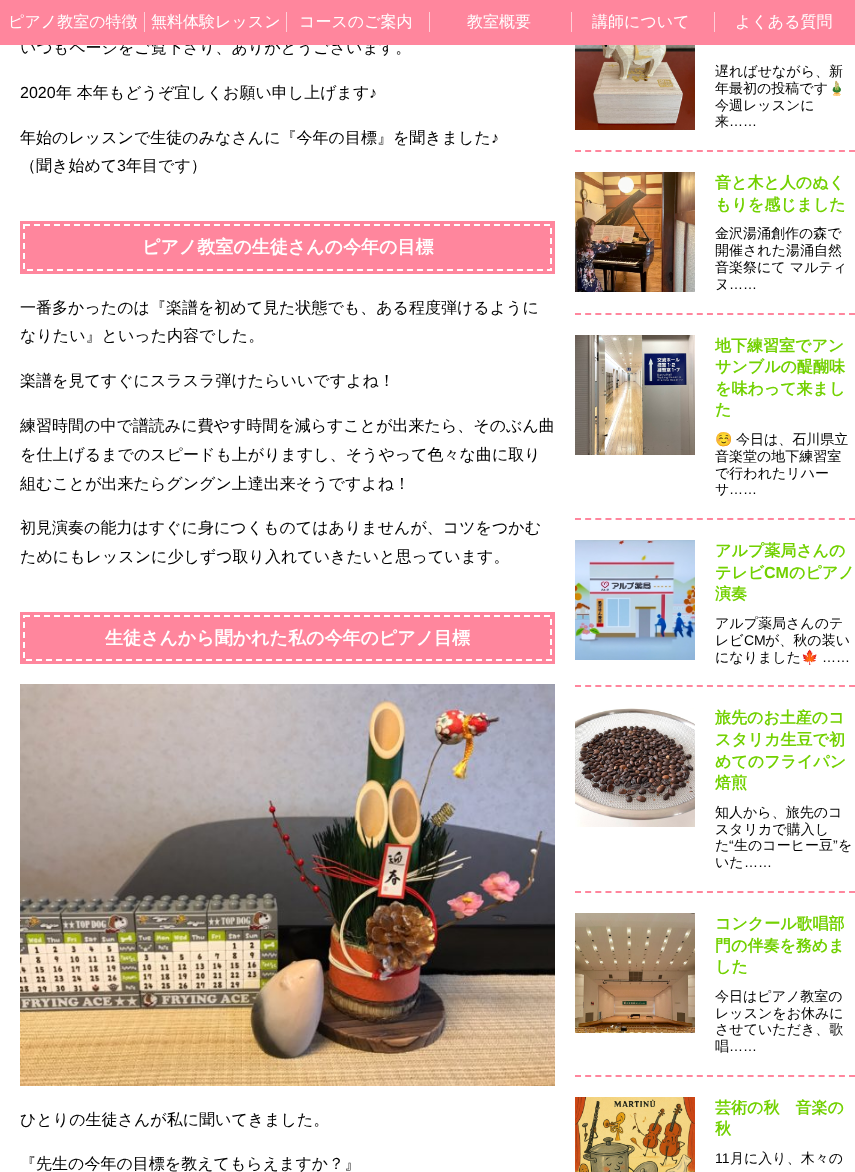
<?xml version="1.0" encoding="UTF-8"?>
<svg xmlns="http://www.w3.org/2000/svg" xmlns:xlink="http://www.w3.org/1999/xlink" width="855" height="1172">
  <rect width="100%" height="100%" fill="#ffffff" />
  <rect x="20" y="221" width="535" height="53" fill="#ff869d" />
  <path d="M 24 225 h 527 v 45 h -527 z" fill="none" stroke="#ffffff" stroke-width="2" stroke-dasharray="6 4" />
  <rect x="20" y="612" width="535" height="52" fill="#ff869d" />
  <path d="M 24 616 h 527 v 44 h -527 z" fill="none" stroke="#ffffff" stroke-width="2" stroke-dasharray="6 4" />
  <image x="20" y="684" width="535" height="402" xlink:href="image1.png" />
  <image x="575" y="45" width="120" height="85" xlink:href="image2.png" />
  <path d="M 575 151 h 280" fill="none" stroke="#ff869d" stroke-width="2" stroke-dasharray="6 4.15" />
  <image x="575" y="172" width="120" height="120" xlink:href="image3.png" />
  <path d="M 575 314 h 280" fill="none" stroke="#ff869d" stroke-width="2" stroke-dasharray="6 4.15" />
  <image x="575" y="335" width="120" height="120" xlink:href="image4.png" />
  <path d="M 575 519 h 280" fill="none" stroke="#ff869d" stroke-width="2" stroke-dasharray="6 4.15" />
  <image x="575" y="540" width="120" height="120" xlink:href="image5.png" />
  <path d="M 575 686 h 280" fill="none" stroke="#ff869d" stroke-width="2" stroke-dasharray="6 4.15" />
  <image x="575" y="708" width="120" height="119" xlink:href="image6.png" />
  <path d="M 575 892 h 280" fill="none" stroke="#ff869d" stroke-width="2" stroke-dasharray="6 4.15" />
  <image x="575" y="913" width="120" height="120" xlink:href="image7.png" />
  <path d="M 575 1076 h 280" fill="none" stroke="#ff869d" stroke-width="2" stroke-dasharray="6 4.15" />
  <image x="575" y="1097" width="120" height="75" xlink:href="image8.png" />
  <text x="20" y="53" style="font-family: WenQuanYi Zen Hei; font-size: 16px; font-weight: 500; fill: #000000">いつもページをご覧下さり、ありがとうございます。</text>
  <rect width="855" height="45" fill="#ff869d" />
  <rect x="714" y="12" width="1" height="20" fill="#ffcfd8" />
  <text x="735" y="27" style="font-family: WenQuanYi Zen Hei; font-size: 16px; font-weight: 500; fill: #ffffff">よくある質問</text>
  <rect x="571" y="12" width="1" height="20" fill="#ffcfd8" />
  <text x="592" y="27" style="font-family: WenQuanYi Zen Hei; font-size: 16px; font-weight: 500; fill: #ffffff">講師について</text>
  <rect x="429" y="12" width="1" height="20" fill="#ffcfd8" />
  <text x="467" y="27" style="font-family: WenQuanYi Zen Hei; font-size: 16px; font-weight: 500; fill: #ffffff">教室概要</text>
  <rect x="286" y="12" width="1" height="20" fill="#ffcfd8" />
  <text x="299" y="27" style="font-family: WenQuanYi Zen Hei; font-size: 16px; font-weight: 500; fill: #ffffff">コースのご案内</text>
  <rect x="144" y="12" width="1" height="20" fill="#ffcfd8" />
  <text x="151" y="27" style="font-family: WenQuanYi Zen Hei; font-size: 16px; font-weight: 500; fill: #ffffff">無料体験レッスン</text>
  <text x="8" y="27" style="font-family: WenQuanYi Zen Hei; font-size: 16px; font-weight: 500; fill: #ffffff">ピアノ教室の特徴</text>
  <text x="20" y="98" style="font-family: Liberation Sans; font-size: 16px; fill: #000000">2020</text>
  <text x="56" y="98" style="font-family: WenQuanYi Zen Hei; font-size: 16px; font-weight: 500; fill: #000000">年 本年もどうぞ宜しくお願い申し上げます</text>
  <text x="369" y="98" style="font-family: Liberation Sans; font-size: 16px; fill: #000000">♪</text>
  <text x="20" y="143" style="font-family: WenQuanYi Zen Hei; font-size: 16px; font-weight: 500; fill: #000000">年始のレッスンで生徒のみなさんに『今年の目標』を聞きました</text>
  <text x="491" y="143" style="font-family: Liberation Sans; font-size: 16px; fill: #000000">♪</text>
  <text x="20" y="171" style="font-family: WenQuanYi Zen Hei; font-size: 16px; font-weight: 500; fill: #000000">（聞き始めて</text>
  <text x="117" y="171" style="font-family: Liberation Sans; font-size: 16px; fill: #000000">3</text>
  <text x="126" y="171" style="font-family: WenQuanYi Zen Hei; font-size: 16px; font-weight: 500; fill: #000000">年目です）</text>
  <text x="142" y="253" style="font-family: WenQuanYi Zen Hei; font-size: 18px; font-weight: bold; fill: #ffffff">ピアノ教室の生徒さんの今年の目標</text>
  <text x="20" y="313" style="font-family: WenQuanYi Zen Hei; font-size: 16px; font-weight: 500; fill: #000000">一番多かったのは『楽譜を初めて見た状態でも、ある程度弾けるように</text>
  <text x="20" y="341" style="font-family: WenQuanYi Zen Hei; font-size: 16px; font-weight: 500; fill: #000000">なりたい』といった内容でした。</text>
  <text x="20" y="386" style="font-family: WenQuanYi Zen Hei; font-size: 16px; font-weight: 500; fill: #000000">楽譜を見てすぐにスラスラ弾けたらいいですよね！</text>
  <text x="20" y="431" style="font-family: WenQuanYi Zen Hei; font-size: 16px; font-weight: 500; fill: #000000">練習時間の中で譜読みに費やす時間を減らすことが出来たら、そのぶん曲</text>
  <text x="20" y="460" style="font-family: WenQuanYi Zen Hei; font-size: 16px; font-weight: 500; fill: #000000">を仕上げるまでのスピードも上がりますし、そうやって色々な曲に取り</text>
  <text x="20" y="489" style="font-family: WenQuanYi Zen Hei; font-size: 16px; font-weight: 500; fill: #000000">組むことが出来たらグングン上達出来そうですよね！</text>
  <text x="20" y="533" style="font-family: WenQuanYi Zen Hei; font-size: 16px; font-weight: 500; fill: #000000">初見演奏の能力はすぐに身につくものてはありませんが、コツをつかむ</text>
  <text x="20" y="562" style="font-family: WenQuanYi Zen Hei; font-size: 16px; font-weight: 500; fill: #000000">ためにもレッスンに少しずつ取り入れていきたいと思っています。</text>
  <text x="105" y="644" style="font-family: WenQuanYi Zen Hei; font-size: 18px; font-weight: bold; fill: #ffffff">生徒さんから聞かれた私の今年のピアノ目標</text>
  <text x="20" y="1125" style="font-family: WenQuanYi Zen Hei; font-size: 16px; font-weight: 500; fill: #000000">ひとりの生徒さんが私に聞いてきました。</text>
  <text x="20" y="1169" style="font-family: WenQuanYi Zen Hei; font-size: 16px; font-weight: 500; fill: #000000">『先生の今年の目標を教えてもらえますか？』</text>
  <text x="715" y="76" style="font-family: WenQuanYi Zen Hei; font-size: 14px; font-weight: 500; fill: #000000">遅ればせながら、新</text>
  <text x="715" y="93" style="font-family: WenQuanYi Zen Hei; font-size: 14px; font-weight: 500; fill: #000000">年最初の投稿です</text>
  <text x="828" y="93" style="font-family: Noto Color Emoji; font-size: 14px; fill: #000000">🎍</text>
  <text x="715" y="110" style="font-family: WenQuanYi Zen Hei; font-size: 14px; font-weight: 500; fill: #000000">今週レッスンに</text>
  <text x="715" y="126" style="font-family: WenQuanYi Zen Hei; font-size: 14px; font-weight: 500; fill: #000000">来</text>
  <text x="729" y="126" style="font-family: Liberation Sans; font-size: 14px; fill: #000000">……</text>
  <text x="715" y="188" style="font-family: WenQuanYi Zen Hei; font-size: 16px; font-weight: bold; fill: #72d100">音と木と人のぬく</text>
  <text x="715" y="210" style="font-family: WenQuanYi Zen Hei; font-size: 16px; font-weight: bold; fill: #72d100">もりを感じました</text>
  <text x="715" y="238" style="font-family: WenQuanYi Zen Hei; font-size: 14px; font-weight: 500; fill: #000000">金沢湯涌創作の森で</text>
  <text x="715" y="255" style="font-family: WenQuanYi Zen Hei; font-size: 14px; font-weight: 500; fill: #000000">開催された湯涌自然</text>
  <text x="715" y="272" style="font-family: WenQuanYi Zen Hei; font-size: 14px; font-weight: 500; fill: #000000">音楽祭にて マルティ</text>
  <text x="715" y="289" style="font-family: WenQuanYi Zen Hei; font-size: 14px; font-weight: 500; fill: #000000">ヌ</text>
  <text x="729" y="289" style="font-family: Liberation Sans; font-size: 14px; fill: #000000">……</text>
  <text x="715" y="351" style="font-family: WenQuanYi Zen Hei; font-size: 16px; font-weight: bold; fill: #72d100">地下練習室でアン</text>
  <text x="715" y="372" style="font-family: WenQuanYi Zen Hei; font-size: 16px; font-weight: bold; fill: #72d100">サンブルの醍醐味</text>
  <text x="715" y="394" style="font-family: WenQuanYi Zen Hei; font-size: 16px; font-weight: bold; fill: #72d100">を味わって来まし</text>
  <text x="715" y="415" style="font-family: WenQuanYi Zen Hei; font-size: 16px; font-weight: bold; fill: #72d100">た</text>
  <text x="715" y="444" style="font-family: Noto Color Emoji; font-size: 14px; fill: #000000">☺️</text>
  <text x="736" y="444" style="font-family: WenQuanYi Zen Hei; font-size: 14px; font-weight: 500; fill: #000000">今日は、石川県立</text>
  <text x="715" y="461" style="font-family: WenQuanYi Zen Hei; font-size: 14px; font-weight: 500; fill: #000000">音楽堂の地下練習室</text>
  <text x="715" y="478" style="font-family: WenQuanYi Zen Hei; font-size: 14px; font-weight: 500; fill: #000000">で行われたリハー</text>
  <text x="715" y="494" style="font-family: WenQuanYi Zen Hei; font-size: 14px; font-weight: 500; fill: #000000">サ</text>
  <text x="729" y="494" style="font-family: Liberation Sans; font-size: 14px; fill: #000000">……</text>
  <text x="715" y="556" style="font-family: WenQuanYi Zen Hei; font-size: 16px; font-weight: bold; fill: #72d100">アルプ薬局さんの</text>
  <text x="715" y="578" style="font-family: WenQuanYi Zen Hei; font-size: 16px; font-weight: bold; fill: #72d100">テレビ</text>
  <text x="764" y="578" style="font-family: Liberation Sans; font-size: 16px; font-weight: bold; fill: #72d100">CM</text>
  <text x="789" y="578" style="font-family: WenQuanYi Zen Hei; font-size: 16px; font-weight: bold; fill: #72d100">のピアノ</text>
  <text x="715" y="599" style="font-family: WenQuanYi Zen Hei; font-size: 16px; font-weight: bold; fill: #72d100">演奏</text>
  <text x="715" y="628" style="font-family: WenQuanYi Zen Hei; font-size: 14px; font-weight: 500; fill: #000000">アルプ薬局さんのテ</text>
  <text x="715" y="645" style="font-family: WenQuanYi Zen Hei; font-size: 14px; font-weight: 500; fill: #000000">レビ</text>
  <text x="744" y="645" style="font-family: Liberation Sans; font-size: 14px; fill: #000000">CM</text>
  <text x="765" y="645" style="font-family: WenQuanYi Zen Hei; font-size: 14px; font-weight: 500; fill: #000000">が、秋の装い</text>
  <text x="715" y="662" style="font-family: WenQuanYi Zen Hei; font-size: 14px; font-weight: 500; fill: #000000">になりました</text>
  <text x="801" y="662" style="font-family: Noto Color Emoji; font-size: 14px; fill: #000000">🍁</text>
  <text x="822" y="662" style="font-family: Liberation Sans; font-size: 14px; fill: #000000">……</text>
  <text x="715" y="723" style="font-family: WenQuanYi Zen Hei; font-size: 16px; font-weight: bold; fill: #72d100">旅先のお土産のコ</text>
  <text x="715" y="745" style="font-family: WenQuanYi Zen Hei; font-size: 16px; font-weight: bold; fill: #72d100">スタリカ生豆で初</text>
  <text x="715" y="767" style="font-family: WenQuanYi Zen Hei; font-size: 16px; font-weight: bold; fill: #72d100">めてのフライパン</text>
  <text x="715" y="788" style="font-family: WenQuanYi Zen Hei; font-size: 16px; font-weight: bold; fill: #72d100">焙煎</text>
  <text x="715" y="817" style="font-family: WenQuanYi Zen Hei; font-size: 14px; font-weight: 500; fill: #000000">知人から、旅先のコ</text>
  <text x="715" y="834" style="font-family: WenQuanYi Zen Hei; font-size: 14px; font-weight: 500; fill: #000000">スタリカで購入し</text>
  <text x="715" y="850" style="font-family: WenQuanYi Zen Hei; font-size: 14px; font-weight: 500; fill: #000000">た</text>
  <text x="729" y="850" style="font-family: Liberation Sans; font-size: 14px; fill: #000000">“</text>
  <text x="734" y="850" style="font-family: WenQuanYi Zen Hei; font-size: 14px; font-weight: 500; fill: #000000">生のコーヒー豆</text>
  <text x="833" y="850" style="font-family: Liberation Sans; font-size: 14px; fill: #000000">”</text>
  <text x="838" y="850" style="font-family: WenQuanYi Zen Hei; font-size: 14px; font-weight: 500; fill: #000000">を</text>
  <text x="715" y="867" style="font-family: WenQuanYi Zen Hei; font-size: 14px; font-weight: 500; fill: #000000">いた</text>
  <text x="744" y="867" style="font-family: Liberation Sans; font-size: 14px; fill: #000000">……</text>
  <text x="715" y="929" style="font-family: WenQuanYi Zen Hei; font-size: 16px; font-weight: bold; fill: #72d100">コンクール歌唱部</text>
  <text x="715" y="951" style="font-family: WenQuanYi Zen Hei; font-size: 16px; font-weight: bold; fill: #72d100">門の伴奏を務めま</text>
  <text x="715" y="972" style="font-family: WenQuanYi Zen Hei; font-size: 16px; font-weight: bold; fill: #72d100">した</text>
  <text x="715" y="1001" style="font-family: WenQuanYi Zen Hei; font-size: 14px; font-weight: 500; fill: #000000">今日はピアノ教室の</text>
  <text x="715" y="1018" style="font-family: WenQuanYi Zen Hei; font-size: 14px; font-weight: 500; fill: #000000">レッスンをお休みに</text>
  <text x="715" y="1034" style="font-family: WenQuanYi Zen Hei; font-size: 14px; font-weight: 500; fill: #000000">させていただき、歌</text>
  <text x="715" y="1051" style="font-family: WenQuanYi Zen Hei; font-size: 14px; font-weight: 500; fill: #000000">唱</text>
  <text x="729" y="1051" style="font-family: Liberation Sans; font-size: 14px; fill: #000000">……</text>
  <text x="715" y="1113" style="font-family: WenQuanYi Zen Hei; font-size: 16px; font-weight: bold; fill: #72d100">芸術の秋　音楽の</text>
  <text x="715" y="1134" style="font-family: WenQuanYi Zen Hei; font-size: 16px; font-weight: bold; fill: #72d100">秋</text>
  <text x="715" y="1163" style="font-family: Liberation Sans; font-size: 14px; fill: #000000">11</text>
  <text x="730" y="1163" style="font-family: WenQuanYi Zen Hei; font-size: 14px; font-weight: 500; fill: #000000">月に入り、木々の</text>
</svg>
